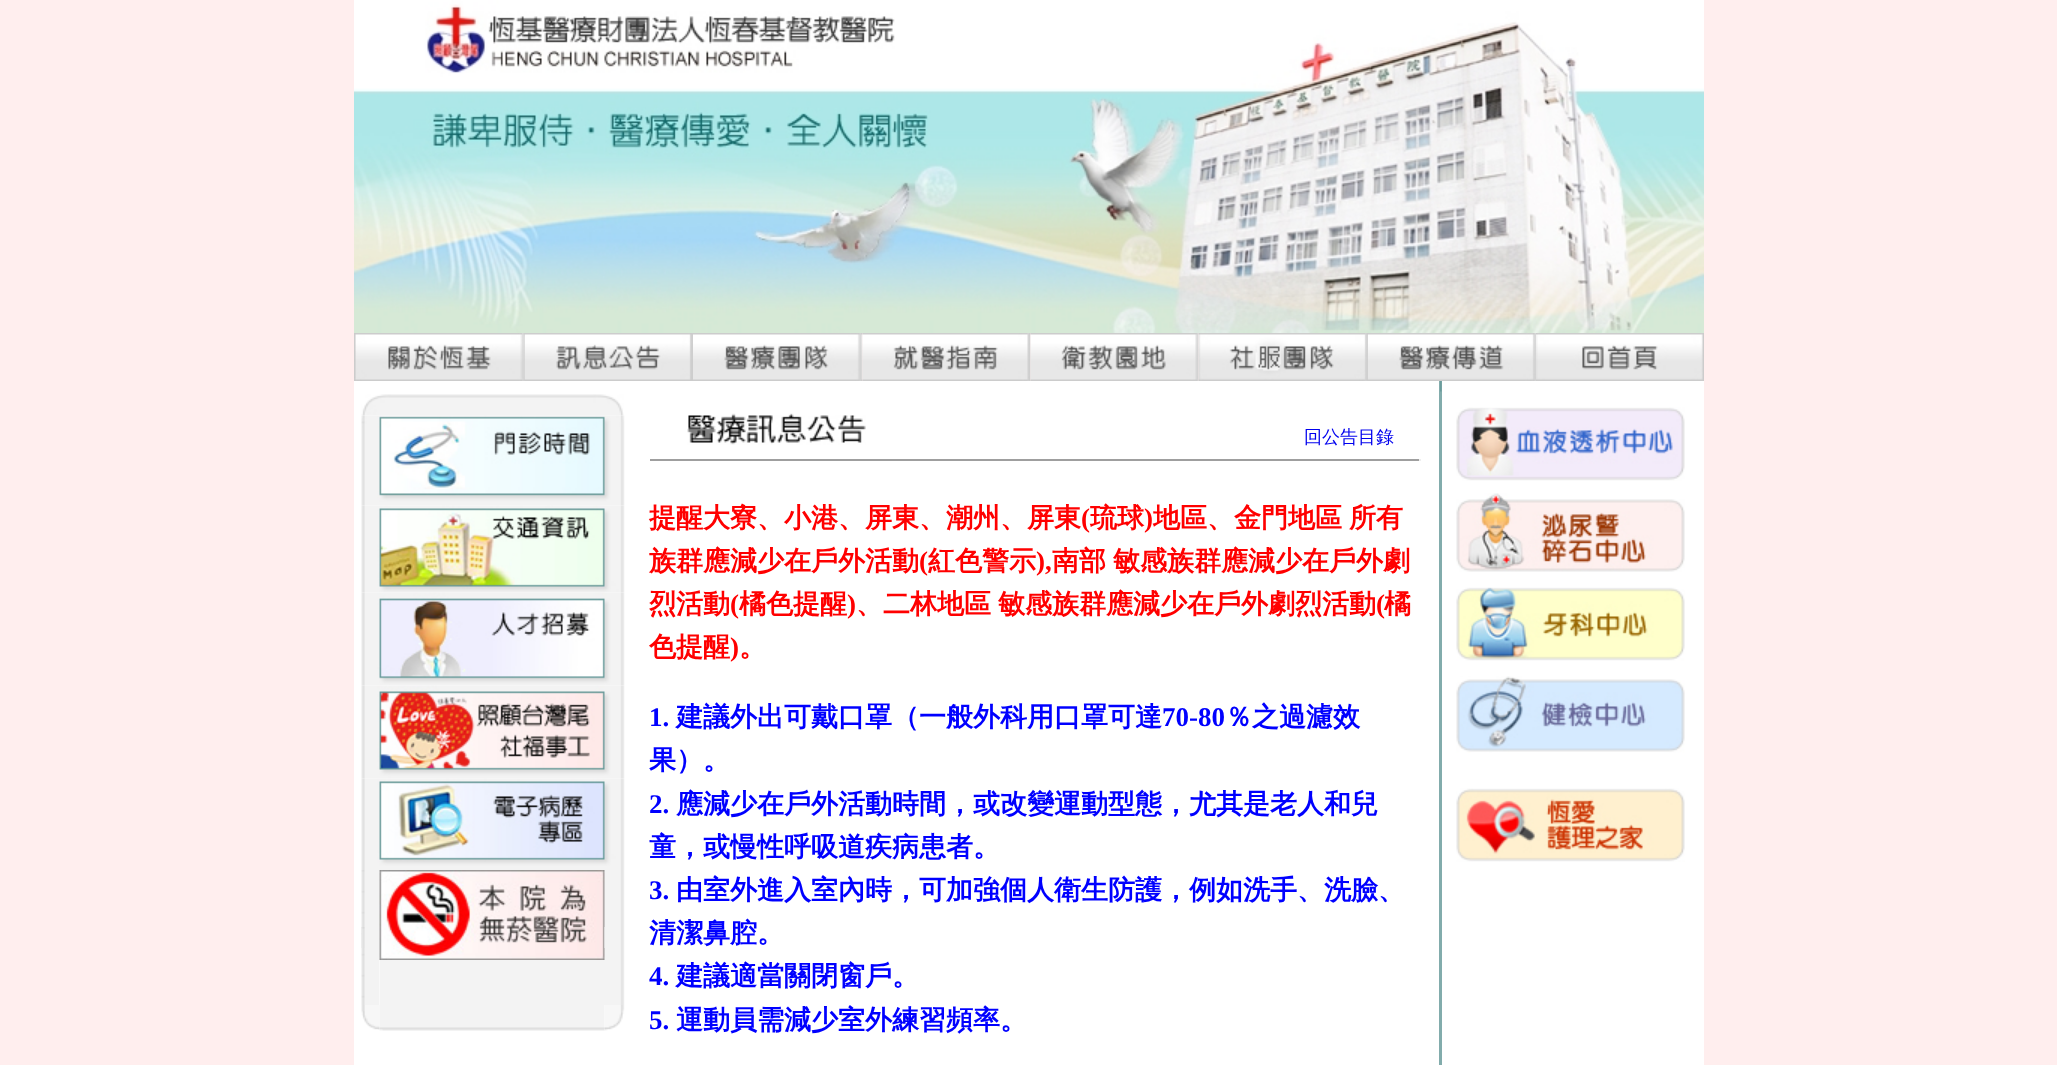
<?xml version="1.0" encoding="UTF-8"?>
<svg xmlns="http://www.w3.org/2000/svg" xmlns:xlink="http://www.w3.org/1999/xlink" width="2057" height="1065">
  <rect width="100%" height="100%" fill="#ffeeee" />
  <image x="354" y="0" width="1350" height="333" xlink:href="image1.png" />
  <image x="354" y="333" width="171" height="48" xlink:href="image2.png" />
  <image x="525" y="333" width="168" height="48" xlink:href="image3.png" />
  <image x="693" y="333" width="170" height="48" xlink:href="image4.png" />
  <image x="862" y="333" width="169" height="48" xlink:href="image5.png" />
  <image x="1030" y="333" width="169" height="48" xlink:href="image6.png" />
  <image x="1198" y="333" width="170" height="48" xlink:href="image7.png" />
  <image x="1368" y="333" width="168" height="48" xlink:href="image8.png" />
  <image x="1536" y="333" width="168" height="48" xlink:href="image9.png" />
  <rect x="354" y="381" width="1350" height="684" fill="#ffffff" />
  <image x="361" y="394" width="263" height="22" xlink:href="image10.png" />
  <image x="361" y="415" width="264" height="91" xlink:href="image11.png" />
  <image x="361" y="505" width="264" height="88" xlink:href="image12.png" />
  <image x="361" y="592" width="264" height="94" xlink:href="image13.png" />
  <image x="361" y="685" width="264" height="94" xlink:href="image14.png" />
  <image x="361" y="778" width="264" height="92" xlink:href="image15.png" />
  <image x="361" y="870" width="19" height="135" xlink:href="image16.png" />
  <image x="361" y="927" width="4" height="21" xlink:href="image17.png" />
  <rect x="380" y="870" width="225" height="135" fill="#f3f3f3" />
  <image x="379" y="870" width="226" height="90" xlink:href="image18.png" />
  <image x="605" y="870" width="20" height="135" xlink:href="image19.png" />
  <rect x="604" y="927" width="1" height="21" fill="#dddcdc" />
  <image x="361" y="1005" width="19" height="25" xlink:href="image20.png" />
  <image x="379" y="1005" width="226" height="26" xlink:href="image21.png" />
  <image x="604" y="1005" width="21" height="26" xlink:href="image22.png" />
  <image x="687" y="413" width="179" height="32" xlink:href="image23.png" />
  <rect x="650" y="459" width="771" height="2" fill="#9f9f9f" />
  <rect x="1419" y="459" width="2" height="2" fill="#eeeeee" />
  <rect x="1439" y="381" width="3" height="684" fill="#82acac" />
  <image x="1440" y="381" width="2" height="11" xlink:href="image24.png" />
  <image x="1456" y="407" width="229" height="74" xlink:href="image25.png" />
  <image x="1456" y="493" width="229" height="79" xlink:href="image26.png" />
  <image x="1456" y="587" width="229" height="74" xlink:href="image27.png" />
  <image x="1456" y="676" width="229" height="77" xlink:href="image28.png" />
  <image x="1456" y="788" width="229" height="74" xlink:href="image29.png" />
  <text x="1304" y="443" style="font-family: WenQuanYi Zen Hei; font-size: 18px; font-weight: 500; fill: #0000ee">回公告目錄</text>
  <text x="649" y="527" style="font-family: WenQuanYi Zen Hei; font-size: 27px; font-weight: bold; fill: #ff0000">提醒大寮、小港、屏東、潮州、屏東</text>
  <text x="1081" y="527" style="font-family: Liberation Serif; font-size: 27px; font-weight: bold; fill: #ff0000">(</text>
  <text x="1090" y="527" style="font-family: WenQuanYi Zen Hei; font-size: 27px; font-weight: bold; fill: #ff0000">琉球</text>
  <text x="1144" y="527" style="font-family: Liberation Serif; font-size: 27px; font-weight: bold; fill: #ff0000">)</text>
  <text x="1153" y="527" word-spacing="-1" style="font-family: WenQuanYi Zen Hei; font-size: 27px; font-weight: bold; fill: #ff0000">地區、金門地區 所有</text>
  <text x="649" y="570" style="font-family: WenQuanYi Zen Hei; font-size: 27px; font-weight: bold; fill: #ff0000">族群應減少在戶外活動</text>
  <text x="919" y="570" style="font-family: Liberation Serif; font-size: 27px; font-weight: bold; fill: #ff0000">(</text>
  <text x="928" y="570" style="font-family: WenQuanYi Zen Hei; font-size: 27px; font-weight: bold; fill: #ff0000">紅色警示</text>
  <text x="1036" y="570" style="font-family: Liberation Serif; font-size: 27px; font-weight: bold; fill: #ff0000">),</text>
  <text x="1052" y="570" word-spacing="-1" style="font-family: WenQuanYi Zen Hei; font-size: 27px; font-weight: bold; fill: #ff0000">南部 敏感族群應減少在戶外劇</text>
  <text x="649" y="613" style="font-family: WenQuanYi Zen Hei; font-size: 27px; font-weight: bold; fill: #ff0000">烈活動</text>
  <text x="730" y="613" style="font-family: Liberation Serif; font-size: 27px; font-weight: bold; fill: #ff0000">(</text>
  <text x="739" y="613" style="font-family: WenQuanYi Zen Hei; font-size: 27px; font-weight: bold; fill: #ff0000">橘色提醒</text>
  <text x="847" y="613" style="font-family: Liberation Serif; font-size: 27px; font-weight: bold; fill: #ff0000">)</text>
  <text x="856" y="613" word-spacing="-1" style="font-family: WenQuanYi Zen Hei; font-size: 27px; font-weight: bold; fill: #ff0000">、二林地區 敏感族群應減少在戶外劇烈活動</text>
  <text x="1376" y="613" style="font-family: Liberation Serif; font-size: 27px; font-weight: bold; fill: #ff0000">(</text>
  <text x="1384" y="613" style="font-family: WenQuanYi Zen Hei; font-size: 27px; font-weight: bold; fill: #ff0000">橘</text>
  <text x="649" y="656" style="font-family: WenQuanYi Zen Hei; font-size: 27px; font-weight: bold; fill: #ff0000">色提醒</text>
  <text x="730" y="656" style="font-family: Liberation Serif; font-size: 27px; font-weight: bold; fill: #ff0000">)</text>
  <text x="739" y="656" style="font-family: WenQuanYi Zen Hei; font-size: 27px; font-weight: bold; fill: #ff0000">。</text>
  <text x="649" y="726" style="font-family: Liberation Serif; font-size: 27px; font-weight: bold; fill: #0000ff">1.</text>
  <text x="676" y="726" style="font-family: WenQuanYi Zen Hei; font-size: 27px; font-weight: bold; fill: #0000ff">建議外出可戴口罩（一般外科用口罩可達</text>
  <text x="1162" y="726" style="font-family: Liberation Serif; font-size: 27px; font-weight: bold; fill: #0000ff">70-80</text>
  <text x="1225" y="726" style="font-family: WenQuanYi Zen Hei; font-size: 27px; font-weight: bold; fill: #0000ff">％之過濾效</text>
  <text x="649" y="769" style="font-family: WenQuanYi Zen Hei; font-size: 27px; font-weight: bold; fill: #0000ff">果）。</text>
  <text x="649" y="813" style="font-family: Liberation Serif; font-size: 27px; font-weight: bold; fill: #0000ff">2.</text>
  <text x="676" y="813" style="font-family: WenQuanYi Zen Hei; font-size: 27px; font-weight: bold; fill: #0000ff">應減少在戶外活動時間，或改變運動型態，尤其是老人和兒</text>
  <text x="649" y="856" style="font-family: WenQuanYi Zen Hei; font-size: 27px; font-weight: bold; fill: #0000ff">童，或慢性呼吸道疾病患者。</text>
  <text x="649" y="899" style="font-family: Liberation Serif; font-size: 27px; font-weight: bold; fill: #0000ff">3.</text>
  <text x="676" y="899" style="font-family: WenQuanYi Zen Hei; font-size: 27px; font-weight: bold; fill: #0000ff">由室外進入室內時，可加強個人衛生防護，例如洗手、洗臉、</text>
  <text x="649" y="942" style="font-family: WenQuanYi Zen Hei; font-size: 27px; font-weight: bold; fill: #0000ff">清潔鼻腔。</text>
  <text x="649" y="985" style="font-family: Liberation Serif; font-size: 27px; font-weight: bold; fill: #0000ff">4.</text>
  <text x="676" y="985" style="font-family: WenQuanYi Zen Hei; font-size: 27px; font-weight: bold; fill: #0000ff">建議適當關閉窗戶。</text>
  <text x="649" y="1029" style="font-family: Liberation Serif; font-size: 27px; font-weight: bold; fill: #0000ff">5.</text>
  <text x="676" y="1029" style="font-family: WenQuanYi Zen Hei; font-size: 27px; font-weight: bold; fill: #0000ff">運動員需減少室外練習頻率。</text>
</svg>
